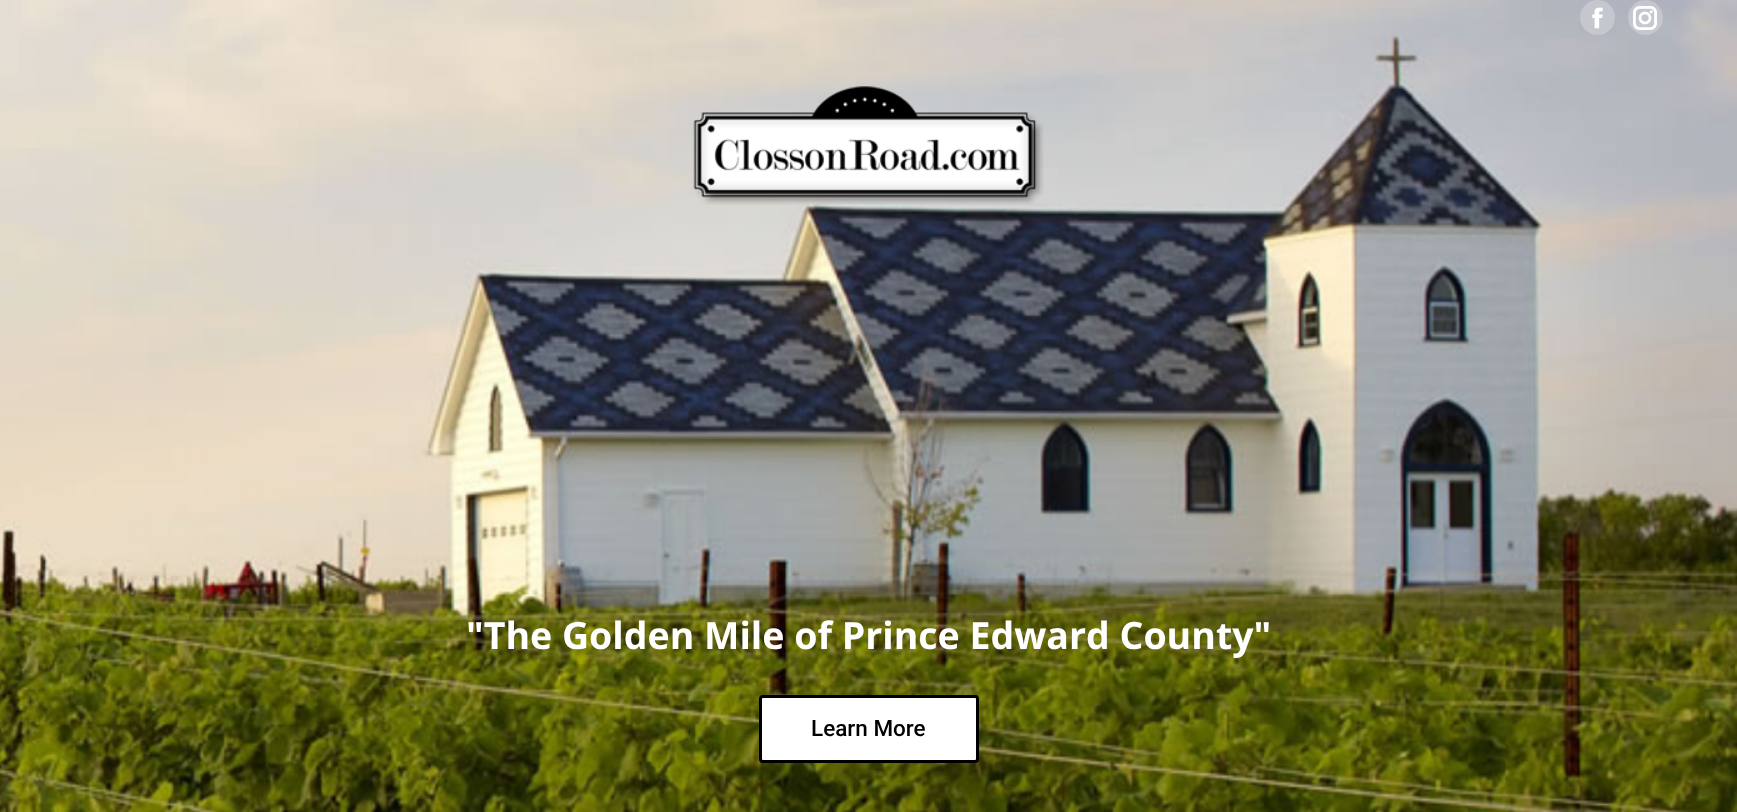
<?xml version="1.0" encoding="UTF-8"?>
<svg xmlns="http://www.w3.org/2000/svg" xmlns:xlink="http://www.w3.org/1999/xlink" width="1737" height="812">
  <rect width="100%" height="100%" fill="#ffffff" />
  <image x="0" y="0" width="1737" height="812" xlink:href="image4.png" />
  <circle cx="1597.5" cy="17.5" r="17.5" fill="#ffffff" fill-opacity="0.25" />
  <image x="1592" y="7" width="11" height="22" xlink:href="image1.png" />
  <circle cx="1645.5" cy="17.5" r="17.5" fill="#ffffff" fill-opacity="0.25" />
  <image x="1633" y="5" width="24" height="25" xlink:href="image2.png" />
  <image x="693" y="86" width="351" height="119" xlink:href="image3.png" />
  <rect x="760.5" y="696.5" width="217" height="65" rx="2.5" fill="#ffffff" stroke="#000000" stroke-width="3" />
  <text x="466" y="649" style="font-family: Open Sans; font-size: 37.5px; font-weight: bold; fill: #ffffff">"The Golden Mile of Prince Edward County"</text>
  <text x="811" y="736" style="font-family: Roboto; font-size: 22.5px; font-weight: 500; fill: #000000">Learn More</text>
</svg>
